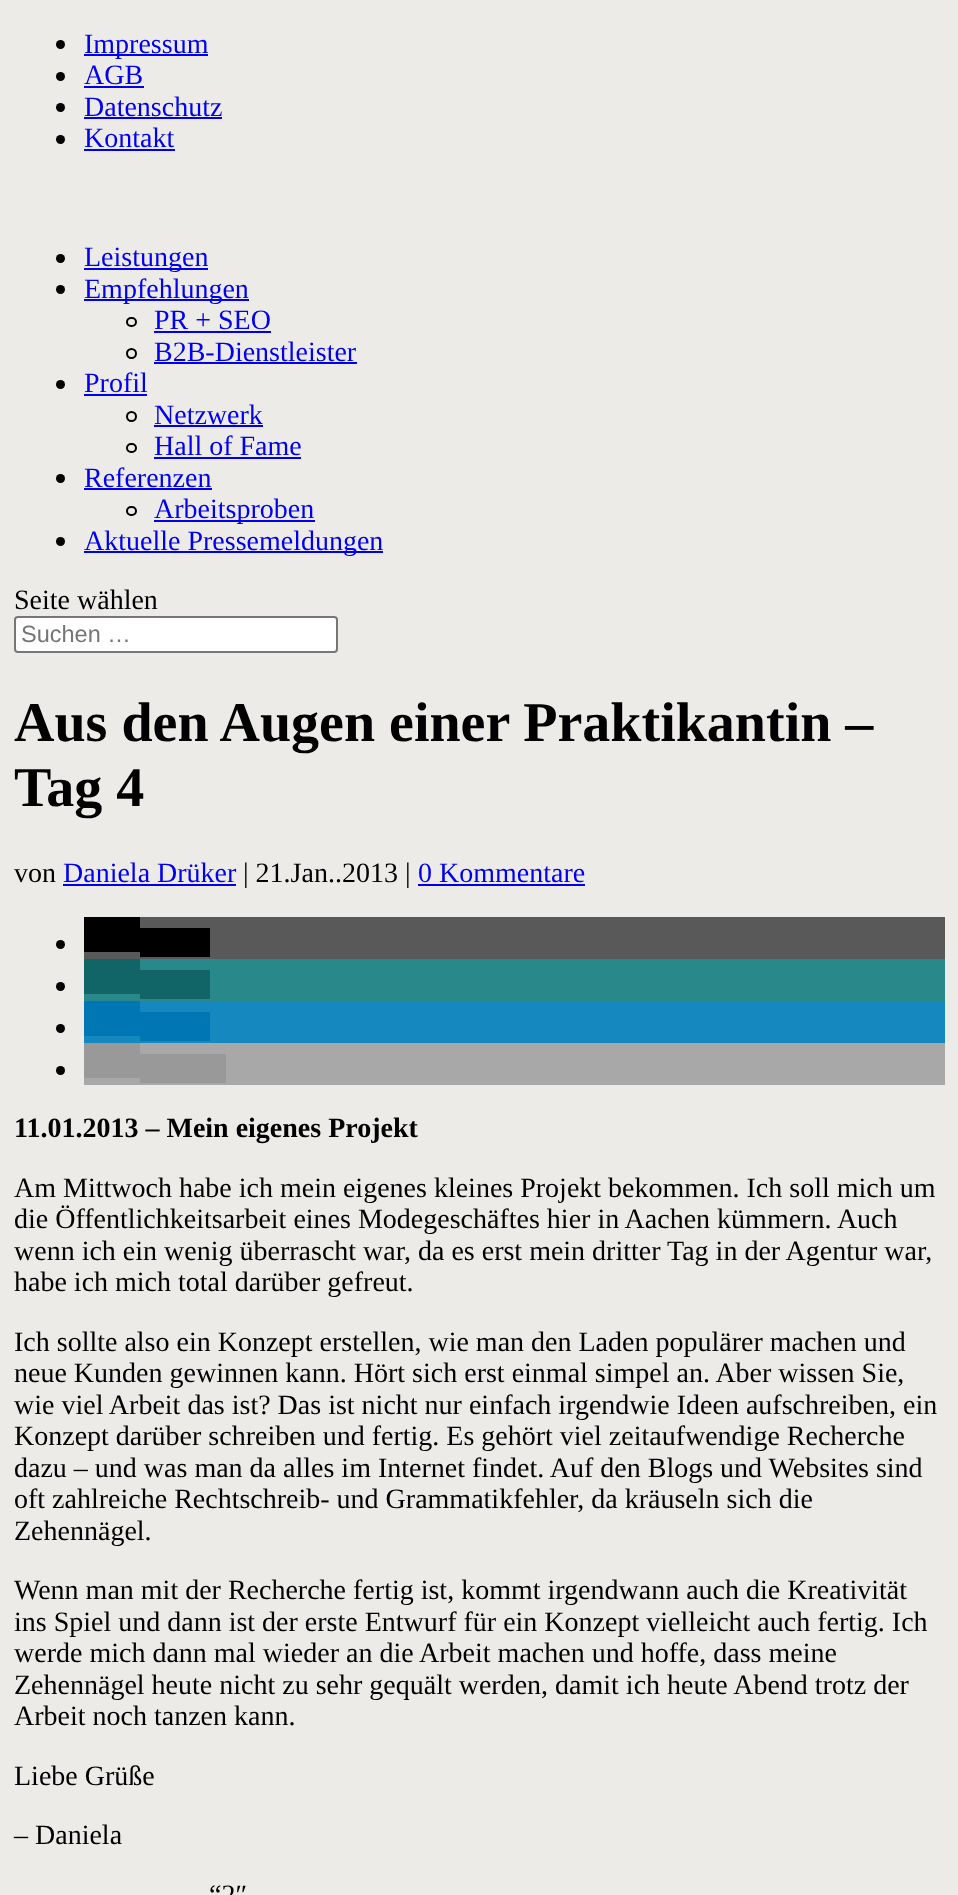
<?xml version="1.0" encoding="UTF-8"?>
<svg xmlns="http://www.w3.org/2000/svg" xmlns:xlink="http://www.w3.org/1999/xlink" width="958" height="1895">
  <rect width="100%" height="100%" fill="#edebe8" />
  <circle cx="60.5" cy="44.5" r="4.5" fill="#000000" />
  <rect x="84" y="54" width="124" height="2" fill="#0000ee" />
  <circle cx="60.5" cy="76.5" r="4.5" fill="#000000" />
  <rect x="84" y="86" width="60" height="2" fill="#0000ee" />
  <circle cx="60.5" cy="107.5" r="4.5" fill="#000000" />
  <rect x="84" y="117" width="138" height="2" fill="#0000ee" />
  <circle cx="60.5" cy="139.5" r="4.5" fill="#000000" />
  <rect x="84" y="149" width="91" height="2" fill="#0000ee" />
  <circle cx="60.5" cy="258.5" r="4.5" fill="#000000" />
  <rect x="84" y="268" width="124" height="2" fill="#0000ee" />
  <circle cx="60.5" cy="289.5" r="4.5" fill="#000000" />
  <rect x="84" y="299" width="165" height="2" fill="#0000ee" />
  <rect x="127" y="318" width="9" height="8" rx="4" fill="none" stroke="#000000" stroke-width="2" />
  <rect x="154" y="331" width="117" height="2" fill="#0000ee" />
  <circle cx="131.5" cy="353.5" r="4.5" fill="none" stroke="#000000" stroke-width="2" />
  <rect x="154" y="362" width="203" height="2" fill="#0000ee" />
  <circle cx="60.5" cy="384.5" r="4.5" fill="#000000" />
  <rect x="84" y="394" width="63" height="2" fill="#0000ee" />
  <circle cx="131.5" cy="416.5" r="4.5" fill="none" stroke="#000000" stroke-width="2" />
  <rect x="154" y="425" width="109" height="2" fill="#0000ee" />
  <rect x="127" y="444" width="9" height="8" rx="4" fill="none" stroke="#000000" stroke-width="2" />
  <rect x="154" y="457" width="147" height="2" fill="#0000ee" />
  <circle cx="60.5" cy="478.5" r="4.5" fill="#000000" />
  <rect x="84" y="488" width="128" height="2" fill="#0000ee" />
  <rect x="127" y="507" width="9" height="8" rx="4" fill="none" stroke="#000000" stroke-width="2" />
  <rect x="154" y="520" width="161" height="2" fill="#0000ee" />
  <circle cx="60.5" cy="541.5" r="4.5" fill="#000000" />
  <rect x="84" y="551" width="299" height="2" fill="#0000ee" />
  <rect x="15" y="617" width="322" height="35" rx="3" fill="#ffffff" stroke="#767676" stroke-width="2" />
  <rect x="63" y="884" width="173" height="2" fill="#0000ee" />
  <rect x="418" y="884" width="167" height="2" fill="#0000ee" />
  <rect x="84" y="917" width="861" height="42" fill="#595959" />
  <circle cx="60.5" cy="944.5" r="4.5" fill="#000000" />
  <rect x="84" y="917" width="56" height="35" fill="#000000" />
  <rect x="140" y="928" width="70" height="29" fill="#000000" />
  <rect x="84" y="959" width="861" height="42" fill="#29888a" />
  <circle cx="60.5" cy="986.5" r="4.5" fill="#000000" />
  <rect x="84" y="959" width="56" height="35" fill="#126567" />
  <rect x="140" y="970" width="70" height="29" fill="#126567" />
  <rect x="84" y="1001" width="861" height="42" fill="#1488bf" />
  <circle cx="60.5" cy="1028.5" r="4.5" fill="#000000" />
  <rect x="84" y="1001" width="56" height="35" fill="#0077b5" />
  <rect x="140" y="1012" width="70" height="29" fill="#0077b5" />
  <rect x="84" y="1043" width="861" height="42" fill="#a8a8a8" />
  <circle cx="60.5" cy="1070.5" r="4.5" fill="#000000" />
  <rect x="84" y="1043" width="56" height="35" fill="#999999" />
  <rect x="140" y="1054" width="86" height="29" fill="#999999" />
  <text x="84" y="53" style="font-family: Liberation Serif; font-size: 28px; fill: #0000ee">Impressum</text>
  <text x="84" y="84" style="font-family: Liberation Serif; font-size: 28px; fill: #0000ee">AGB</text>
  <text x="84" y="116" style="font-family: Liberation Serif; font-size: 28px; fill: #0000ee">Datenschutz</text>
  <text x="84" y="147" style="font-family: Liberation Serif; font-size: 28px; fill: #0000ee">Kontakt</text>
  <text x="84" y="266" style="font-family: Liberation Serif; font-size: 28px; fill: #0000ee">Leistungen</text>
  <text x="84" y="298" style="font-family: Liberation Serif; font-size: 28px; fill: #0000ee">Empfehlungen</text>
  <text x="154" y="329" style="font-family: Liberation Serif; font-size: 28px; fill: #0000ee">PR + SEO</text>
  <text x="154" y="361" style="font-family: Liberation Serif; font-size: 28px; fill: #0000ee">B2B-Dienstleister</text>
  <text x="84" y="392" style="font-family: Liberation Serif; font-size: 28px; fill: #0000ee">Profil</text>
  <text x="154" y="424" style="font-family: Liberation Serif; font-size: 28px; fill: #0000ee">Netzwerk</text>
  <text x="154" y="455" style="font-family: Liberation Serif; font-size: 28px; fill: #0000ee">Hall of Fame</text>
  <text x="84" y="487" style="font-family: Liberation Serif; font-size: 28px; fill: #0000ee">Referenzen</text>
  <text x="154" y="518" style="font-family: Liberation Serif; font-size: 28px; fill: #0000ee">Arbeitsproben</text>
  <text x="84" y="550" style="font-family: Liberation Serif; font-size: 28px; fill: #0000ee">Aktuelle Pressemeldungen</text>
  <text x="14" y="609" style="font-family: Liberation Serif; font-size: 28px; fill: #000000">Seite wählen</text>
  <text x="21" y="642" style="font-family: Liberation Sans; font-size: 23.5px; fill: #757575">Suchen …</text>
  <text x="14" y="741" style="font-family: Liberation Serif; font-size: 56px; font-weight: bold; fill: #000000">Aus den Augen einer Praktikantin –</text>
  <text x="14" y="806" style="font-family: Liberation Serif; font-size: 56px; font-weight: bold; fill: #000000">Tag 4</text>
  <text x="14" y="882" style="font-family: Liberation Serif; font-size: 28px; fill: #000000">von</text>
  <text x="63" y="882" style="font-family: Liberation Serif; font-size: 28px; fill: #0000ee">Daniela Drüker</text>
  <text x="243" y="882" style="font-family: Liberation Serif; font-size: 28px; fill: #000000">| 21.Jan..2013 |</text>
  <text x="418" y="882" style="font-family: Liberation Serif; font-size: 28px; fill: #0000ee">0 Kommentare</text>
  <text x="14" y="1137" style="font-family: Liberation Serif; font-size: 28px; font-weight: bold; fill: #000000">11.01.2013 – Mein eigenes Projekt</text>
  <text x="14" y="1197" style="font-family: Liberation Serif; font-size: 28px; fill: #000000">Am Mittwoch habe ich mein eigenes kleines Projekt bekommen. Ich soll mich um</text>
  <text x="14" y="1228" style="font-family: Liberation Serif; font-size: 28px; fill: #000000">die Öffentlichkeitsarbeit eines Modegeschäftes hier in Aachen kümmern. Auch</text>
  <text x="14" y="1260" style="font-family: Liberation Serif; font-size: 28px; fill: #000000">wenn ich ein wenig überrascht war, da es erst mein dritter Tag in der Agentur war,</text>
  <text x="14" y="1291" style="font-family: Liberation Serif; font-size: 28px; fill: #000000">habe ich mich total darüber gefreut.</text>
  <text x="14" y="1351" style="font-family: Liberation Serif; font-size: 28px; fill: #000000">Ich sollte also ein Konzept erstellen, wie man den Laden populärer machen und</text>
  <text x="14" y="1382" style="font-family: Liberation Serif; font-size: 28px; fill: #000000">neue Kunden gewinnen kann. Hört sich erst einmal simpel an. Aber wissen Sie,</text>
  <text x="14" y="1414" style="font-family: Liberation Serif; font-size: 28px; fill: #000000">wie viel Arbeit das ist? Das ist nicht nur einfach irgendwie Ideen aufschreiben, ein</text>
  <text x="14" y="1445" style="font-family: Liberation Serif; font-size: 28px; fill: #000000">Konzept darüber schreiben und fertig. Es gehört viel zeitaufwendige Recherche</text>
  <text x="14" y="1477" style="font-family: Liberation Serif; font-size: 28px; fill: #000000">dazu – und was man da alles im Internet findet. Auf den Blogs und Websites sind</text>
  <text x="14" y="1508" style="font-family: Liberation Serif; font-size: 28px; fill: #000000">oft zahlreiche Rechtschreib- und Grammatikfehler, da kräuseln sich die</text>
  <text x="14" y="1540" style="font-family: Liberation Serif; font-size: 28px; fill: #000000">Zehennägel.</text>
  <text x="14" y="1599" style="font-family: Liberation Serif; font-size: 28px; fill: #000000">Wenn man mit der Recherche fertig ist, kommt irgendwann auch die Kreativität</text>
  <text x="14" y="1631" style="font-family: Liberation Serif; font-size: 28px; fill: #000000">ins Spiel und dann ist der erste Entwurf für ein Konzept vielleicht auch fertig. Ich</text>
  <text x="14" y="1662" style="font-family: Liberation Serif; font-size: 28px; fill: #000000">werde mich dann mal wieder an die Arbeit machen und hoffe, dass meine</text>
  <text x="14" y="1694" style="font-family: Liberation Serif; font-size: 28px; fill: #000000">Zehennägel heute nicht zu sehr gequält werden, damit ich heute Abend trotz der</text>
  <text x="14" y="1725" style="font-family: Liberation Serif; font-size: 28px; fill: #000000">Arbeit noch tanzen kann.</text>
  <text x="14" y="1785" style="font-family: Liberation Serif; font-size: 28px; fill: #000000">Liebe Grüße</text>
  <text x="14" y="1844" style="font-family: Liberation Serif; font-size: 28px; fill: #000000">– Daniela</text>
  <text x="209" y="1904" style="font-family: Liberation Serif; font-size: 28px; fill: #000000">“2″</text>
</svg>
